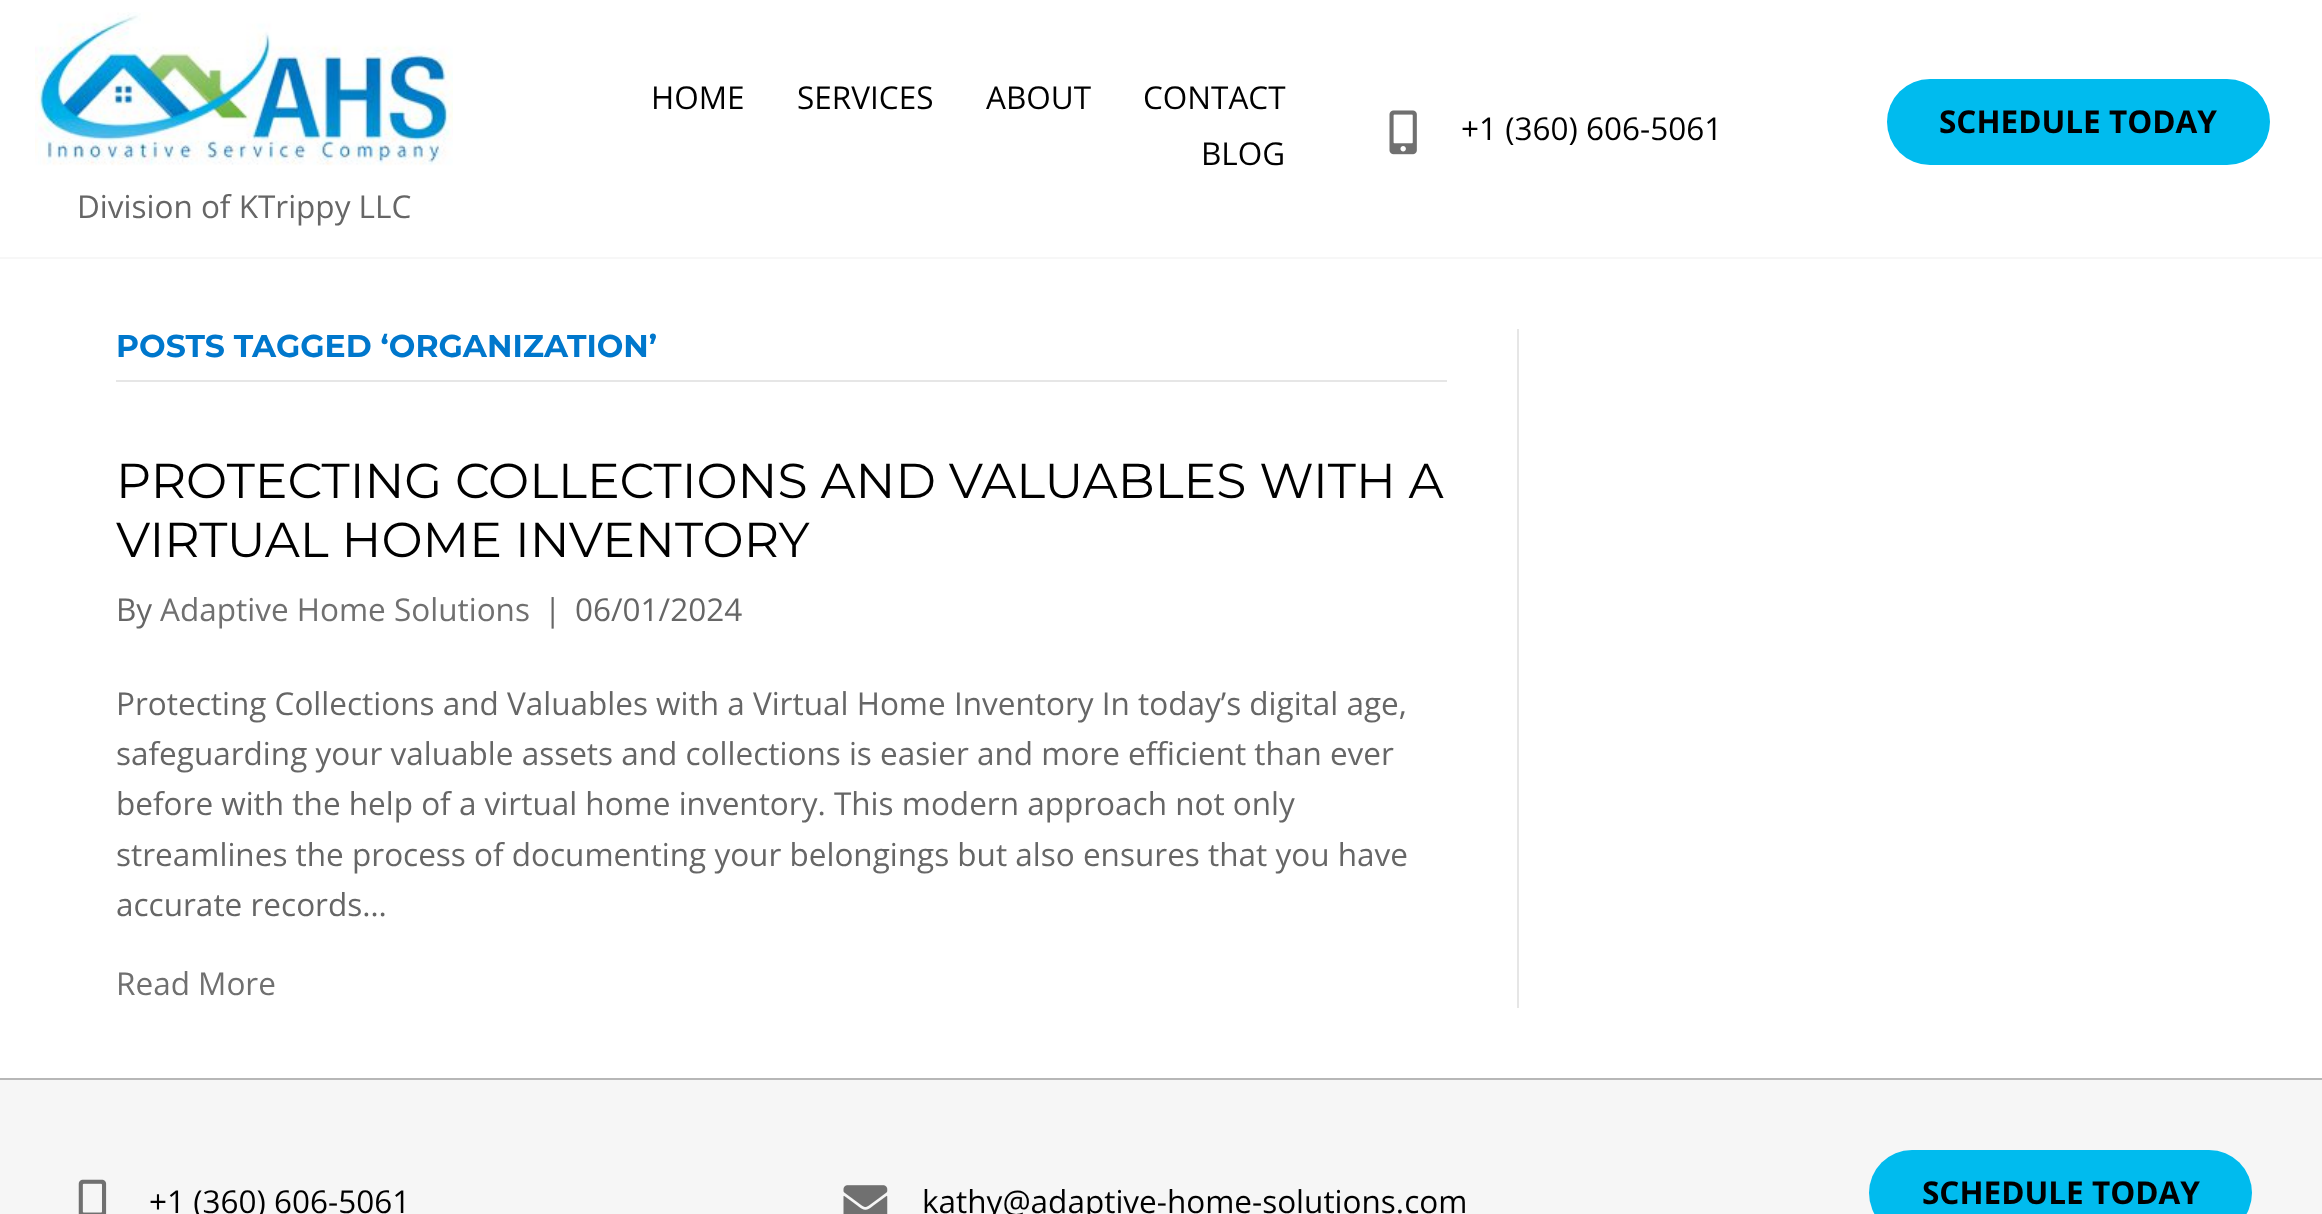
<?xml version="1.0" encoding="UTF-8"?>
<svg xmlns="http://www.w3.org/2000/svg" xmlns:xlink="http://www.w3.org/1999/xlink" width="2322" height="1214">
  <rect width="100%" height="100%" fill="#ffffff" />
  <rect y="257" width="2322" height="2" fill="#f7f7f7" />
  <image x="1389" y="110" width="28" height="45" xlink:href="image1.png" />
  <rect x="1887" y="79" width="383" height="86" rx="43" fill="#00bbee" />
  <image x="35" y="12" width="418" height="154" xlink:href="image2.png" />
  <rect x="1517" y="329" width="2" height="679" fill="#e6e6e6" />
  <rect x="116" y="380" width="1331" height="2" fill="#e6e6e6" />
  <rect y="1080" width="2322" height="134" fill="#f6f6f6" />
  <rect y="1078" width="2322" height="2" fill="#b7b7b7" />
  <image x="78" y="1179" width="29" height="35" xlink:href="image3.png" />
  <image x="843" y="1185" width="45" height="29" xlink:href="image4.png" />
  <rect x="1869" y="1150" width="383" height="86" rx="43" fill="#00bbee" />
  <text x="651" y="109" style="font-family: Open Sans; font-size: 31.5px; fill: #000000">HOME</text>
  <text x="797" y="109" style="font-family: Open Sans; font-size: 31.5px; fill: #000000">SERVICES</text>
  <text x="986" y="109" style="font-family: Open Sans; font-size: 31.5px; fill: #000000">ABOUT</text>
  <text x="1143" y="109" style="font-family: Open Sans; font-size: 31.5px; fill: #000000">CONTACT</text>
  <text x="1201" y="165" style="font-family: Open Sans; font-size: 31.5px; fill: #000000">BLOG</text>
  <text x="1461" y="140" style="font-family: Open Sans; font-size: 31.5px; fill: #000000">+1 (360) 606-5061</text>
  <text x="1939" y="133" style="font-family: Open Sans; font-size: 31.5px; font-weight: bold; fill: #000000">SCHEDULE TODAY</text>
  <text x="77" y="218" style="font-family: Open Sans; font-size: 31.5px; fill: #666666">Division of KTrippy LLC</text>
  <text x="116" y="357" style="font-family: Montserrat; font-size: 31.5px; font-weight: bold; fill: #0077cc">POSTS TAGGED ‘ORGANIZATION’</text>
  <text x="116" y="498" style="font-family: Montserrat; font-size: 49px; fill: #000000">PROTECTING COLLECTIONS AND VALUABLES WITH A</text>
  <text x="116" y="557" style="font-family: Montserrat; font-size: 49px; fill: #000000">VIRTUAL HOME INVENTORY</text>
  <text x="116" y="621" style="font-family: Open Sans; font-size: 31.5px; fill: #666666">By</text>
  <text x="160" y="621" style="font-family: Open Sans; font-size: 31.5px; fill: #707070">Adaptive Home Solutions</text>
  <text x="544" y="621" style="font-family: Open Sans; font-size: 31.5px; fill: #666666">|</text>
  <text x="575" y="621" style="font-family: Open Sans; font-size: 31.5px; fill: #666666">06/01/2024</text>
  <text x="116" y="715" style="font-family: Open Sans; font-size: 31.5px; fill: #666666">Protecting Collections and Valuables with a Virtual Home Inventory In today’s digital age,</text>
  <text x="116" y="765" style="font-family: Open Sans; font-size: 31.5px; fill: #666666">safeguarding your valuable assets and collections is easier and more efficient than ever</text>
  <text x="116" y="815" style="font-family: Open Sans; font-size: 31.5px; fill: #666666">before with the help of a virtual home inventory. This modern approach not only</text>
  <text x="116" y="866" style="font-family: Open Sans; font-size: 31.5px; fill: #666666">streamlines the process of documenting your belongings but also ensures that you have</text>
  <text x="116" y="916" style="font-family: Open Sans; font-size: 31.5px; fill: #666666">accurate records…</text>
  <text x="116" y="995" style="font-family: Open Sans; font-size: 31.5px; fill: #707070">Read More</text>
  <text x="149" y="1213" style="font-family: Open Sans; font-size: 31.5px; fill: #000000">+1 (360) 606-5061</text>
  <text x="922" y="1213" style="font-family: Open Sans; font-size: 31.5px; fill: #000000">kathy@adaptive-home-solutions.com</text>
  <text x="1922" y="1204" style="font-family: Open Sans; font-size: 31.5px; font-weight: bold; fill: #000000">SCHEDULE TODAY</text>
</svg>
